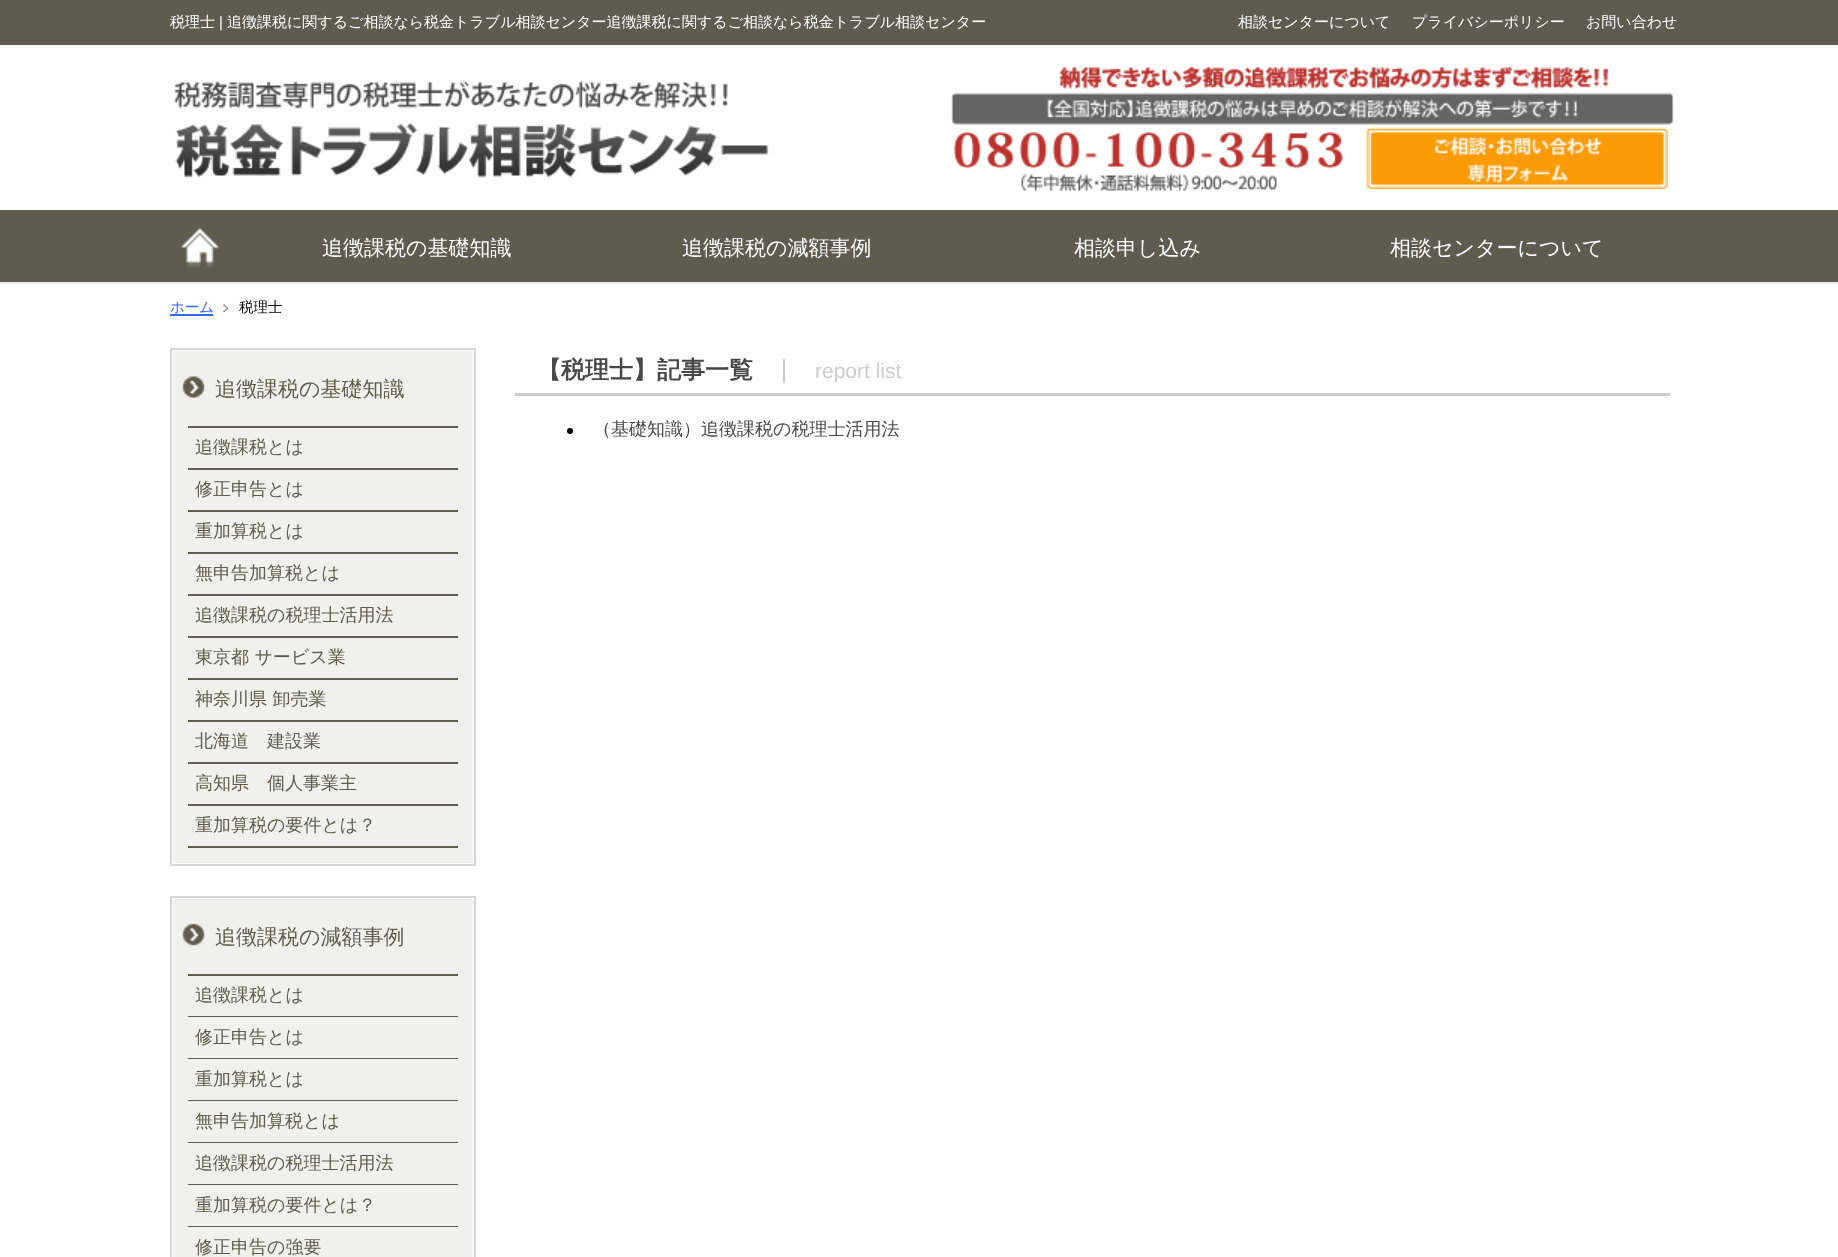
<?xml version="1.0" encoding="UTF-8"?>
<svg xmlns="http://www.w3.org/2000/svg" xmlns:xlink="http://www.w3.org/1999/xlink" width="1838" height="1257">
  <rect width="100%" height="100%" fill="#ffffff" />
  <rect width="1838" height="45" fill="#5f5b4f" />
  <image x="173" y="80" width="596" height="98" xlink:href="image1.png" />
  <image x="951" y="65" width="723" height="60" xlink:href="image2.png" />
  <image x="953" y="132" width="390" height="59" xlink:href="image3.png" />
  <image x="1366" y="127" width="302" height="63" xlink:href="image4.png" />
  <rect y="210" width="1838" height="72" fill="#5f5b4f" />
  <rect y="282" width="1838" height="2" fill="#efefef" />
  <image x="181" y="227" width="39" height="41" xlink:href="image5.png" />
  <rect x="170" y="314" width="43" height="2" fill="#3366ff" />
  <image x="223" y="304" width="5" height="8" xlink:href="image6.png" />
  <rect x="171" y="349" width="304" height="516" fill="none" stroke="#d6d6d6" stroke-width="2" />
  <rect x="173" y="351" width="300" height="512" fill="#f1f0ec" />
  <image x="182" y="376" width="23" height="22" xlink:href="image7.png" />
  <rect x="188" y="426" width="270" height="2" fill="#5f5b4f" />
  <rect x="188" y="468" width="270" height="2" fill="#5f5b4f" />
  <rect x="188" y="510" width="270" height="2" fill="#5f5b4f" />
  <rect x="188" y="552" width="270" height="2" fill="#5f5b4f" />
  <rect x="188" y="594" width="270" height="2" fill="#5f5b4f" />
  <rect x="188" y="636" width="270" height="2" fill="#5f5b4f" />
  <rect x="188" y="678" width="270" height="2" fill="#5f5b4f" />
  <rect x="188" y="720" width="270" height="2" fill="#5f5b4f" />
  <rect x="188" y="762" width="270" height="2" fill="#5f5b4f" />
  <rect x="188" y="804" width="270" height="2" fill="#5f5b4f" />
  <rect x="188" y="846" width="270" height="2" fill="#5f5b4f" />
  <rect x="171" y="897" width="304" height="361" fill="none" stroke="#d6d6d6" stroke-width="2" />
  <rect x="173" y="899" width="300" height="358" fill="#f1f0ec" />
  <image x="182" y="923" width="23" height="23" xlink:href="image8.png" />
  <rect x="188" y="974" width="270" height="2" fill="#5f5b4f" />
  <rect x="188" y="1016" width="270" height="1" fill="#5f5b4f" />
  <rect x="188" y="1058" width="270" height="1" fill="#5f5b4f" />
  <rect x="188" y="1100" width="270" height="1" fill="#5f5b4f" />
  <rect x="188" y="1142" width="270" height="1" fill="#5f5b4f" />
  <rect x="188" y="1184" width="270" height="1" fill="#5f5b4f" />
  <rect x="188" y="1226" width="270" height="1" fill="#5f5b4f" />
  <rect x="515" y="393" width="1155" height="3" fill="#cccccc" />
  <rect x="783" y="359" width="2" height="24" fill="#cccccc" />
  <circle cx="570" cy="431" r="3" fill="#000000" />
  <text x="170" y="27" style="font-family: WenQuanYi Zen Hei; font-size: 15px; font-weight: 500; fill: #ffffff">税理士</text>
  <text x="219" y="27" style="font-family: Liberation Sans; font-size: 15px; fill: #ffffff">|</text>
  <text x="227" y="27" style="font-family: WenQuanYi Zen Hei; font-size: 15px; font-weight: 500; fill: #ffffff">追徴課税に関するご相談なら税金トラブル相談センター追徴課税に関するご相談なら税金トラブル相談センター</text>
  <text x="1238" y="27" style="font-family: WenQuanYi Zen Hei; font-size: 15px; font-weight: 500; fill: #ffffff">相談センターについて</text>
  <text x="1412" y="27" style="font-family: WenQuanYi Zen Hei; font-size: 15px; font-weight: 500; fill: #ffffff">プライバシーポリシー</text>
  <text x="1586" y="27" style="font-family: WenQuanYi Zen Hei; font-size: 15px; font-weight: 500; fill: #ffffff">お問い合わせ</text>
  <text x="322" y="255" style="font-family: WenQuanYi Zen Hei; font-size: 21px; font-weight: 500; fill: #ffffff">追徴課税の基礎知識</text>
  <text x="682" y="255" style="font-family: WenQuanYi Zen Hei; font-size: 21px; font-weight: 500; fill: #ffffff">追徴課税の減額事例</text>
  <text x="1074" y="255" style="font-family: WenQuanYi Zen Hei; font-size: 21px; font-weight: 500; fill: #ffffff">相談申し込み</text>
  <text x="1390" y="255" style="font-family: WenQuanYi Zen Hei; font-size: 21px; font-weight: 500; fill: #ffffff">相談センターについて</text>
  <text x="170" y="312" style="font-family: WenQuanYi Zen Hei; font-size: 14.5px; font-weight: 500; fill: #3366ff">ホーム</text>
  <text x="239" y="312" style="font-family: WenQuanYi Zen Hei; font-size: 14.5px; font-weight: 500; fill: #000000">税理士</text>
  <text x="215" y="396" style="font-family: WenQuanYi Zen Hei; font-size: 21px; font-weight: 500; fill: #5f5b4f">追徴課税の基礎知識</text>
  <text x="195" y="453" style="font-family: WenQuanYi Zen Hei; font-size: 18px; font-weight: 500; fill: #5f5b4f">追徴課税とは</text>
  <text x="195" y="495" style="font-family: WenQuanYi Zen Hei; font-size: 18px; font-weight: 500; fill: #5f5b4f">修正申告とは</text>
  <text x="195" y="537" style="font-family: WenQuanYi Zen Hei; font-size: 18px; font-weight: 500; fill: #5f5b4f">重加算税とは</text>
  <text x="195" y="579" style="font-family: WenQuanYi Zen Hei; font-size: 18px; font-weight: 500; fill: #5f5b4f">無申告加算税とは</text>
  <text x="195" y="621" style="font-family: WenQuanYi Zen Hei; font-size: 18px; font-weight: 500; fill: #5f5b4f">追徴課税の税理士活用法</text>
  <text x="195" y="663" style="font-family: WenQuanYi Zen Hei; font-size: 18px; font-weight: 500; fill: #5f5b4f">東京都 サービス業</text>
  <text x="195" y="705" style="font-family: WenQuanYi Zen Hei; font-size: 18px; font-weight: 500; fill: #5f5b4f">神奈川県 卸売業</text>
  <text x="195" y="747" style="font-family: WenQuanYi Zen Hei; font-size: 18px; font-weight: 500; fill: #5f5b4f">北海道　建設業</text>
  <text x="195" y="789" style="font-family: WenQuanYi Zen Hei; font-size: 18px; font-weight: 500; fill: #5f5b4f">高知県　個人事業主</text>
  <text x="195" y="831" style="font-family: WenQuanYi Zen Hei; font-size: 18px; font-weight: 500; fill: #5f5b4f">重加算税の要件とは？</text>
  <text x="215" y="944" style="font-family: WenQuanYi Zen Hei; font-size: 21px; font-weight: 500; fill: #5f5b4f">追徴課税の減額事例</text>
  <text x="195" y="1001" style="font-family: WenQuanYi Zen Hei; font-size: 18px; font-weight: 500; fill: #5f5b4f">追徴課税とは</text>
  <text x="195" y="1043" style="font-family: WenQuanYi Zen Hei; font-size: 18px; font-weight: 500; fill: #5f5b4f">修正申告とは</text>
  <text x="195" y="1085" style="font-family: WenQuanYi Zen Hei; font-size: 18px; font-weight: 500; fill: #5f5b4f">重加算税とは</text>
  <text x="195" y="1127" style="font-family: WenQuanYi Zen Hei; font-size: 18px; font-weight: 500; fill: #5f5b4f">無申告加算税とは</text>
  <text x="195" y="1169" style="font-family: WenQuanYi Zen Hei; font-size: 18px; font-weight: 500; fill: #5f5b4f">追徴課税の税理士活用法</text>
  <text x="195" y="1211" style="font-family: WenQuanYi Zen Hei; font-size: 18px; font-weight: 500; fill: #5f5b4f">重加算税の要件とは？</text>
  <text x="195" y="1253" style="font-family: WenQuanYi Zen Hei; font-size: 18px; font-weight: 500; fill: #5f5b4f">修正申告の強要</text>
  <text x="537" y="378" style="font-family: WenQuanYi Zen Hei; font-size: 24px; font-weight: bold; fill: #484848">【税理士】記事一覧</text>
  <text x="815" y="378" style="font-family: Liberation Sans; font-size: 21px; fill: #cccccc">report list</text>
  <text x="593" y="435" style="font-family: WenQuanYi Zen Hei; font-size: 18px; font-weight: 500; fill: #484848">（基礎知識）追徴課税の税理士活用法</text>
</svg>
